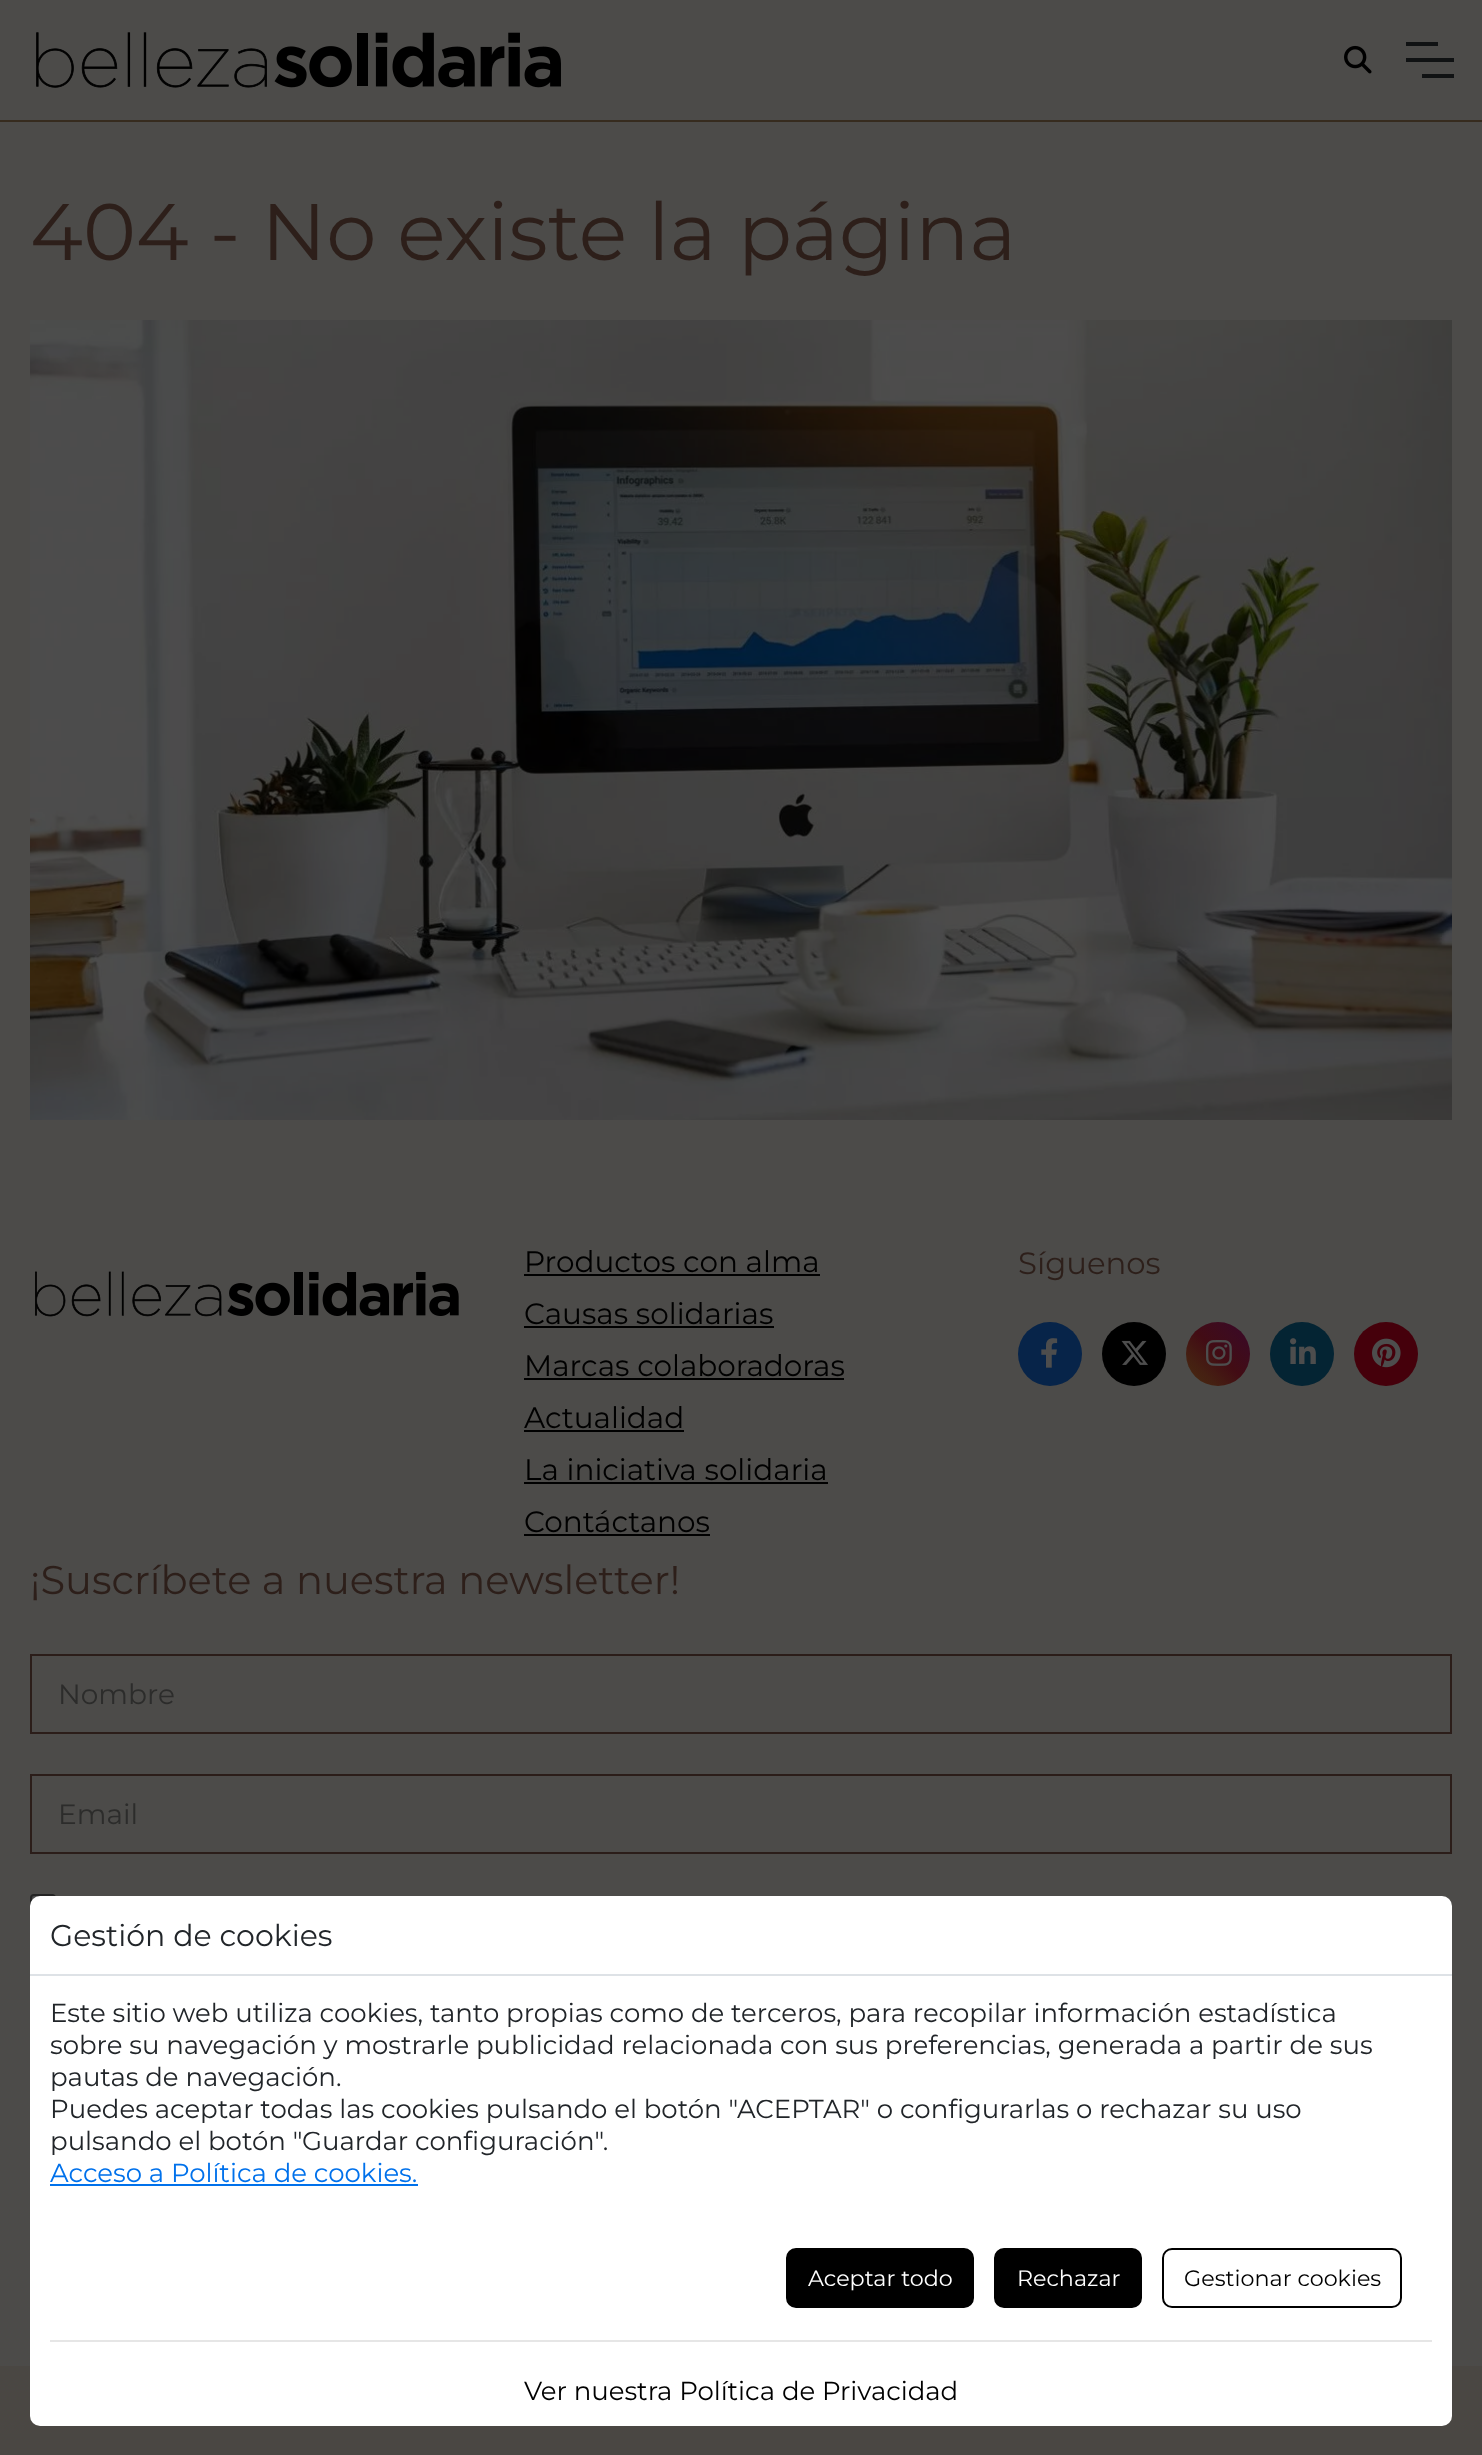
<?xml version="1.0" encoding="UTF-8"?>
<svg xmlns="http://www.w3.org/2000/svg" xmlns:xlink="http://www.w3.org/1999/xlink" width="1482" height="2455">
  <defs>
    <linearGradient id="g1" gradientUnits="userSpaceOnUse" x1="1186" y1="1386" x2="1250" y2="1322"><stop offset="0" stop-color="#482d10" /><stop offset="0.25" stop-color="#451f12" /><stop offset="0.5" stop-color="#420c14" /><stop offset="0.75" stop-color="#3d0b1f" /><stop offset="1" stop-color="#390729" /></linearGradient>
  </defs>
  <rect width="100%" height="100%" fill="#4c4b49" />
  <rect y="120" width="1482" height="2" fill="#362b1e" />
  <image x="36" y="32" width="525" height="56" xlink:href="image1.png" />
  <image x="1344" y="45" width="28" height="29" xlink:href="image2.png" />
  <rect x="1422" y="74" width="32" height="4" fill="#101213" />
  <rect x="1406" y="42" width="32" height="4" fill="#101213" />
  <rect x="1406" y="58" width="48" height="4" fill="#101213" />
  <image x="30" y="320" width="1422" height="800" xlink:href="image3.png" />
  <rect x="524" y="1274" width="296" height="2" fill="#000000" />
  <rect x="524" y="1326" width="250" height="2" fill="#000000" />
  <rect x="524" y="1378" width="320" height="2" fill="#000000" />
  <rect x="524" y="1430" width="160" height="2" fill="#000000" />
  <rect x="524" y="1482" width="304" height="2" fill="#000000" />
  <rect x="524" y="1534" width="186" height="2" fill="#000000" />
  <circle cx="1050" cy="1354" r="32" fill="#072449" />
  <image x="1041" y="1338" width="17" height="30" xlink:href="image4.png" />
  <circle cx="1134" cy="1354" r="32" fill="#000000" />
  <image x="1121" y="1340" width="27" height="25" xlink:href="image5.png" />
  <circle cx="1218" cy="1354" r="32" fill="url(#g1)" />
  <image x="1206" y="1340" width="26" height="26" xlink:href="image6.png" />
  <circle cx="1302" cy="1354" r="32" fill="#042433" />
  <image x="1290" y="1338" width="26" height="26" xlink:href="image7.png" />
  <circle cx="1386" cy="1354" r="32" fill="#45000b" />
  <image x="1372" y="1338" width="29" height="30" xlink:href="image8.png" />
  <image x="35" y="1271" width="424" height="46" xlink:href="image9.png" />
  <rect x="31" y="1655" width="1420" height="78" fill="none" stroke="#2b1d19" stroke-width="2" />
  <rect x="31" y="1775" width="1420" height="78" fill="none" stroke="#2b1d19" stroke-width="2" />
  <rect x="31" y="1895" width="24" height="24" rx="3" fill="#4d4d4d" stroke="#242424" stroke-width="2" />
  <rect y="2366" width="1482" height="89" fill="#4a4743" />
  <rect x="30" y="1896" width="1422" height="530" rx="10" fill="#ffffff" />
  <rect x="30" y="1974" width="1422" height="2" fill="#dee2e6" />
  <rect x="50" y="2184" width="368" height="2" fill="#0071eb" />
  <rect x="787" y="2249" width="186" height="58" rx="9" fill="#000000" stroke="#000000" stroke-width="2" />
  <rect x="995" y="2249" width="146" height="58" rx="9" fill="#000000" stroke="#000000" stroke-width="2" />
  <rect x="1163" y="2249" width="238" height="58" rx="9" fill="none" stroke="#000000" stroke-width="2" />
  <rect x="50" y="2340" width="1382" height="2" fill="#e6e6e6" />
  <text x="30" y="260" style="font-family: Montserrat; font-size: 80px; font-weight: 100; fill: #2d1f1a">404 - No existe la página</text>
  <text x="524" y="1272" style="font-family: Montserrat; font-size: 29.5px; font-weight: 100; fill: #000000">Productos con alma</text>
  <text x="524" y="1324" style="font-family: Montserrat; font-size: 29.5px; font-weight: 100; fill: #000000">Causas solidarias</text>
  <text x="524" y="1376" style="font-family: Montserrat; font-size: 29.5px; font-weight: 100; fill: #000000">Marcas colaboradoras</text>
  <text x="524" y="1428" style="font-family: Montserrat; font-size: 29.5px; font-weight: 100; fill: #000000">Actualidad</text>
  <text x="524" y="1480" style="font-family: Montserrat; font-size: 29.5px; font-weight: 100; fill: #000000">La iniciativa solidaria</text>
  <text x="524" y="1532" style="font-family: Montserrat; font-size: 29.5px; font-weight: 100; fill: #000000">Contáctanos</text>
  <text x="1018" y="1274" style="font-family: Montserrat; font-size: 30.75px; font-weight: 100; fill: #2d1f1a">Síguenos</text>
  <text x="30" y="1594" style="font-family: Montserrat; font-size: 40px; font-weight: 100; fill: #2d1f1a">¡Suscríbete a nuestra newsletter!</text>
  <text x="58" y="1704" style="font-family: Montserrat; font-size: 28px; font-weight: 100; fill: #2c2c2b">Nombre</text>
  <text x="58" y="1824" style="font-family: Montserrat; font-size: 28px; font-weight: 100; fill: #2c2c2b">Email</text>
  <text x="50" y="1946" style="font-family: Montserrat; font-size: 30px; font-weight: 100; fill: #212529">Gestión de cookies</text>
  <text x="50" y="2022" style="font-family: Montserrat; font-size: 26px; font-weight: 100; fill: #212529">Este sitio web utiliza cookies, tanto propias como de terceros, para recopilar información estadística</text>
  <text x="50" y="2054" style="font-family: Montserrat; font-size: 26px; font-weight: 100; fill: #212529">sobre su navegación y mostrarle publicidad relacionada con sus preferencias, generada a partir de sus</text>
  <text x="50" y="2086" style="font-family: Montserrat; font-size: 26px; font-weight: 100; fill: #212529">pautas de navegación.</text>
  <text x="50" y="2118" style="font-family: Montserrat; font-size: 26px; font-weight: 100; fill: #212529">Puedes aceptar todas las cookies pulsando el botón "ACEPTAR" o configurarlas o rechazar su uso</text>
  <text x="50" y="2150" style="font-family: Montserrat; font-size: 26px; font-weight: 100; fill: #212529">pulsando el botón "Guardar configuración".</text>
  <text x="50" y="2182" style="font-family: Montserrat; font-size: 26px; font-weight: 100; fill: #0071eb">Acceso a Política de cookies.</text>
  <text x="808" y="2286" style="font-family: Montserrat; font-size: 22.25px; font-weight: 100; fill: #ffffff">Aceptar todo</text>
  <text x="1017" y="2286" style="font-family: Montserrat; font-size: 22.25px; font-weight: 100; fill: #ffffff">Rechazar</text>
  <text x="1184" y="2286" style="font-family: Montserrat; font-size: 22.25px; font-weight: 100; fill: #000000">Gestionar cookies</text>
  <text x="524" y="2400" style="font-family: Montserrat; font-size: 26px; font-weight: 100; fill: #000000">Ver nuestra Política de Privacidad</text>
</svg>
